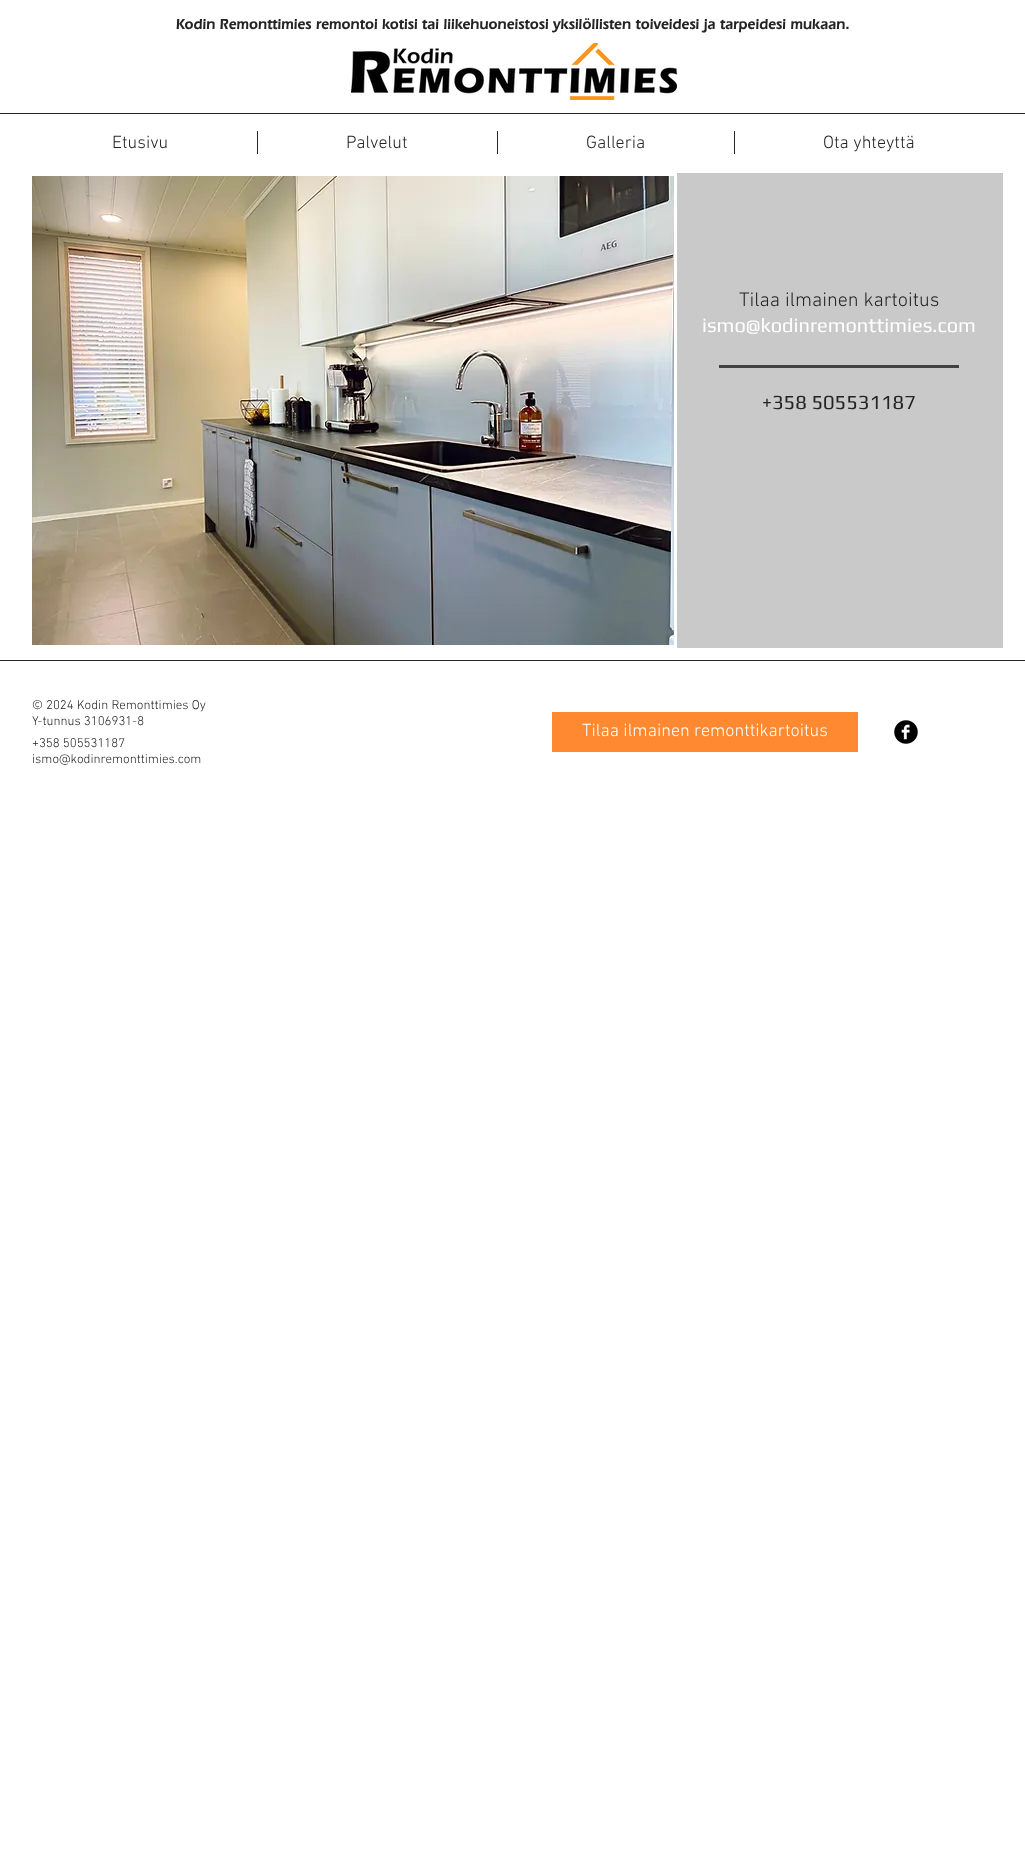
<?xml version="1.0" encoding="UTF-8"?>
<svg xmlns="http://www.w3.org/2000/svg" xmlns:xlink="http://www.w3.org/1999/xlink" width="1025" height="1874">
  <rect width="100%" height="100%" fill="#ffffff" />
  <image x="351" y="43" width="326" height="57" xlink:href="image1.png" />
  <rect y="113" width="1025" height="1" fill="#242424" />
  <rect x="257" y="131" width="1" height="23" fill="#242424" />
  <rect x="497" y="131" width="1" height="23" fill="#242424" />
  <rect x="734" y="131" width="1" height="23" fill="#242424" />
  <image x="32" y="176" width="642" height="469" xlink:href="image2.png" />
  <rect x="677" y="173" width="326" height="475" fill="#c9c9c9" />
  <rect x="719" y="365" width="240" height="3" fill="#424242" />
  <rect y="660" width="1025" height="1" fill="#242424" />
  <rect x="552" y="712" width="306" height="40" fill="#ff8930" />
  <image x="894" y="720" width="24" height="24" xlink:href="image3.png" />
  <text x="176" y="29" style="font-family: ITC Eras; font-size: 15px; font-weight: bold; fill: #242424">Kodin Remonttimies remontoi kotisi tai liikehuoneistosi yksilöllisten toiveidesi ja tarpeidesi mukaan.</text>
  <text x="112" y="148" style="font-family: 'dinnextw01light'; font-size: 18px; font-weight: 300; fill: #242424">Etusivu</text>
  <text x="346" y="148" style="font-family: 'dinnextw01light'; font-size: 18px; font-weight: 300; fill: #242424">Palvelut</text>
  <text x="586" y="148" style="font-family: 'dinnextw01light'; font-size: 18px; font-weight: 300; fill: #242424">Galleria</text>
  <text x="823" y="148" style="font-family: 'dinnextw01light'; font-size: 18px; font-weight: 300; fill: #242424">Ota yhteyttä</text>
  <text x="739" y="306" style="font-family: 'dinnextw01light'; font-size: 20px; font-weight: 300; fill: #242424">Tilaa ilmainen kartoitus</text>
  <text x="702" y="332" style="font-family: Play; font-size: 20px; fill: #ffffff">ismo@kodinremonttimies.com</text>
  <text x="762" y="409" style="font-family: Play; font-size: 20px; fill: #242424">+358 505531187</text>
  <text x="32" y="709" style="font-family: 'dinnextw01light'; font-size: 13px; font-weight: 300; fill: #242424">© 2024 Kodin Remonttimies Oy</text>
  <text x="32" y="725" style="font-family: 'dinnextw01light'; font-size: 13px; font-weight: 300; fill: #242424">Y-tunnus 3106931-8</text>
  <text x="582" y="736" style="font-family: 'dinnextw01light'; font-size: 18px; font-weight: 300; fill: #ffffff">Tilaa ilmainen remonttikartoitus</text>
  <text x="32" y="747" style="font-family: 'dinnextw01light'; font-size: 13px; font-weight: 300; fill: #242424">+358 505531187</text>
  <text x="32" y="763" style="font-family: 'dinnextw01light'; font-size: 13px; font-weight: 300; fill: #242424">ismo@kodinremonttimies.com</text>
</svg>
